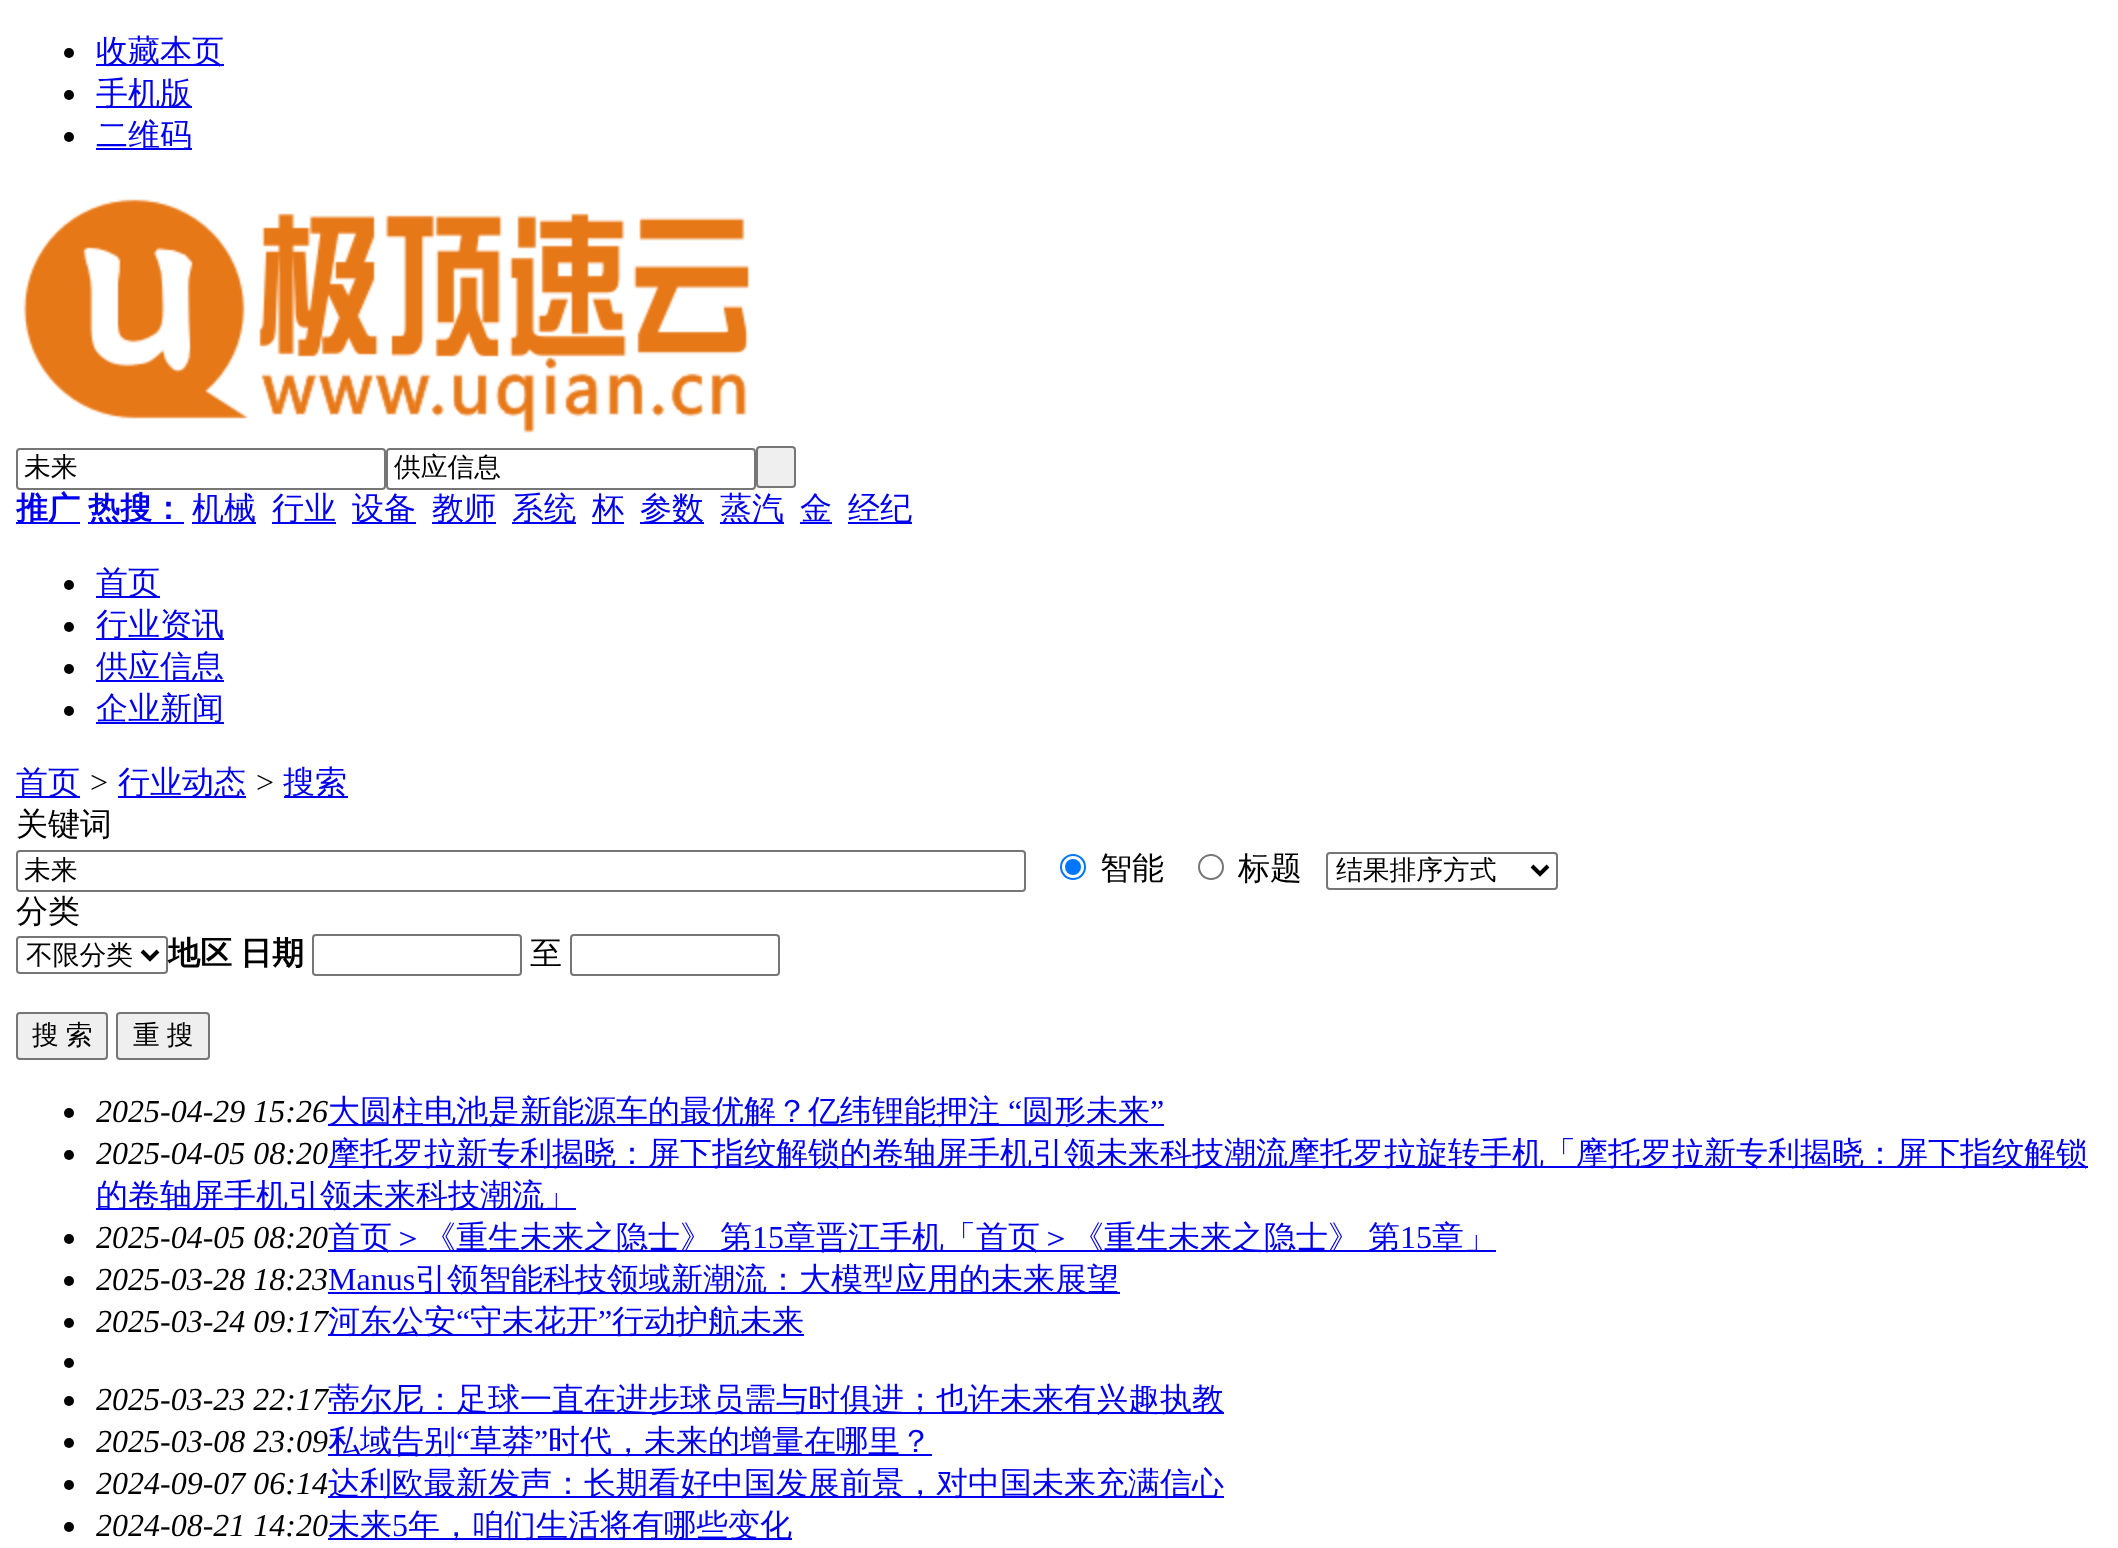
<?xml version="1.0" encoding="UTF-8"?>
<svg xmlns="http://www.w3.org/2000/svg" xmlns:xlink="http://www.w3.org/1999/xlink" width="2118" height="1548">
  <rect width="100%" height="100%" fill="#ffffff" />
  <circle cx="69" cy="53" r="5" fill="#000000" />
  <rect x="96" y="64" width="128" height="2" fill="#0000ee" />
  <circle cx="69" cy="95" r="5" fill="#000000" />
  <rect x="96" y="106" width="96" height="2" fill="#0000ee" />
  <circle cx="69" cy="137" r="5" fill="#000000" />
  <rect x="96" y="148" width="96" height="2" fill="#0000ee" />
  <image x="23" y="199" width="727" height="234" xlink:href="image1.png" />
  <rect x="17" y="449" width="368" height="40" rx="3" fill="none" stroke="#767676" stroke-width="2" />
  <rect x="387" y="449" width="368" height="40" rx="3" fill="none" stroke="#767676" stroke-width="2" />
  <rect x="757" y="447" width="38" height="40" rx="3" fill="#efefef" stroke="#767676" stroke-width="2" />
  <rect x="16" y="522" width="64" height="2" fill="#0000ee" />
  <rect x="88" y="522" width="96" height="2" fill="#0000ee" />
  <rect x="192" y="522" width="64" height="2" fill="#0000ee" />
  <rect x="272" y="522" width="64" height="2" fill="#0000ee" />
  <rect x="352" y="522" width="64" height="2" fill="#0000ee" />
  <rect x="432" y="522" width="64" height="2" fill="#0000ee" />
  <rect x="512" y="522" width="64" height="2" fill="#0000ee" />
  <rect x="592" y="522" width="32" height="2" fill="#0000ee" />
  <rect x="640" y="522" width="64" height="2" fill="#0000ee" />
  <rect x="720" y="522" width="64" height="2" fill="#0000ee" />
  <rect x="800" y="522" width="32" height="2" fill="#0000ee" />
  <rect x="848" y="522" width="64" height="2" fill="#0000ee" />
  <circle cx="69" cy="585" r="5" fill="#000000" />
  <rect x="96" y="596" width="64" height="2" fill="#0000ee" />
  <circle cx="69" cy="627" r="5" fill="#000000" />
  <rect x="96" y="638" width="128" height="2" fill="#0000ee" />
  <circle cx="69" cy="669" r="5" fill="#000000" />
  <rect x="96" y="680" width="128" height="2" fill="#0000ee" />
  <circle cx="69" cy="711" r="5" fill="#000000" />
  <rect x="96" y="722" width="128" height="2" fill="#0000ee" />
  <rect x="16" y="796" width="64" height="2" fill="#0000ee" />
  <rect x="118" y="796" width="128" height="2" fill="#0000ee" />
  <rect x="284" y="796" width="64" height="2" fill="#0000ee" />
  <rect x="17" y="851" width="1008" height="40" rx="3" fill="none" stroke="#767676" stroke-width="2" />
  <circle cx="1073" cy="867" r="12" fill="none" stroke="#0075ff" stroke-width="2" />
  <circle cx="1073" cy="867" r="8" fill="#0075ff" />
  <circle cx="1211" cy="867" r="12" fill="none" stroke="#767676" stroke-width="2" />
  <rect x="1327" y="853" width="230" height="36" rx="3" fill="none" stroke="#767676" stroke-width="2" />
  <path d="M 1532 866 l 8 8 l 8 -8" fill="none" stroke="#000000" stroke-width="4" />
  <rect x="17" y="937" width="150" height="36" rx="3" fill="none" stroke="#767676" stroke-width="2" />
  <path d="M 142 951 l 8 8 l 8 -8" fill="none" stroke="#000000" stroke-width="4" />
  <rect x="313" y="935" width="208" height="40" rx="3" fill="none" stroke="#767676" stroke-width="2" />
  <rect x="571" y="935" width="208" height="40" rx="3" fill="none" stroke="#767676" stroke-width="2" />
  <rect x="17" y="1013" width="90" height="46" rx="3" fill="#efefef" stroke="#767676" stroke-width="2" />
  <rect x="117" y="1013" width="92" height="46" rx="3" fill="#efefef" stroke="#767676" stroke-width="2" />
  <rect x="328" y="1124" width="836" height="2" fill="#0000ee" />
  <circle cx="69" cy="1113" r="5" fill="#000000" />
  <circle cx="69" cy="1155" r="5" fill="#000000" />
  <rect x="328" y="1166" width="1760" height="2" fill="#0000ee" />
  <rect x="96" y="1208" width="480" height="2" fill="#0000ee" />
  <circle cx="69" cy="1239" r="5" fill="#000000" />
  <rect x="328" y="1250" width="1168" height="2" fill="#0000ee" />
  <circle cx="69" cy="1281" r="5" fill="#000000" />
  <rect x="328" y="1292" width="792" height="2" fill="#0000ee" />
  <rect x="328" y="1334" width="476" height="2" fill="#0000ee" />
  <circle cx="69" cy="1323" r="5" fill="#000000" />
  <circle cx="69" cy="1363" r="5" fill="#000000" />
  <circle cx="69" cy="1401" r="5" fill="#000000" />
  <rect x="328" y="1412" width="896" height="2" fill="#0000ee" />
  <rect x="328" y="1454" width="604" height="2" fill="#0000ee" />
  <circle cx="69" cy="1443" r="5" fill="#000000" />
  <circle cx="69" cy="1485" r="5" fill="#000000" />
  <rect x="328" y="1496" width="896" height="2" fill="#0000ee" />
  <circle cx="69" cy="1527" r="5" fill="#000000" />
  <rect x="328" y="1538" width="464" height="2" fill="#0000ee" />
  <text x="96" y="62" style="font-family: WenQuanYi Zen Hei; font-size: 32px; font-weight: 500; fill: #0000ee">收藏本页</text>
  <text x="96" y="104" style="font-family: WenQuanYi Zen Hei; font-size: 32px; font-weight: 500; fill: #0000ee">手机版</text>
  <text x="96" y="146" style="font-family: WenQuanYi Zen Hei; font-size: 32px; font-weight: 500; fill: #0000ee">二维码</text>
  <text x="24" y="476" style="font-family: WenQuanYi Zen Hei; font-size: 26.75px; font-weight: 500; fill: #000000">未来</text>
  <text x="394" y="476" style="font-family: WenQuanYi Zen Hei; font-size: 26.75px; font-weight: 500; fill: #000000">供应信息</text>
  <text x="16" y="519" style="font-family: WenQuanYi Zen Hei; font-size: 32px; font-weight: bold; fill: #0000ee">推广</text>
  <text x="88" y="519" style="font-family: WenQuanYi Zen Hei; font-size: 32px; font-weight: bold; fill: #0000ee">热搜：</text>
  <text x="192" y="519" style="font-family: WenQuanYi Zen Hei; font-size: 32px; font-weight: 500; fill: #0000ee">机械</text>
  <text x="272" y="519" style="font-family: WenQuanYi Zen Hei; font-size: 32px; font-weight: 500; fill: #0000ee">行业</text>
  <text x="352" y="519" style="font-family: WenQuanYi Zen Hei; font-size: 32px; font-weight: 500; fill: #0000ee">设备</text>
  <text x="432" y="519" style="font-family: WenQuanYi Zen Hei; font-size: 32px; font-weight: 500; fill: #0000ee">教师</text>
  <text x="512" y="519" style="font-family: WenQuanYi Zen Hei; font-size: 32px; font-weight: 500; fill: #0000ee">系统</text>
  <text x="592" y="519" style="font-family: WenQuanYi Zen Hei; font-size: 32px; font-weight: 500; fill: #0000ee">杯</text>
  <text x="640" y="519" style="font-family: WenQuanYi Zen Hei; font-size: 32px; font-weight: 500; fill: #0000ee">参数</text>
  <text x="720" y="519" style="font-family: WenQuanYi Zen Hei; font-size: 32px; font-weight: 500; fill: #0000ee">蒸汽</text>
  <text x="800" y="519" style="font-family: WenQuanYi Zen Hei; font-size: 32px; font-weight: 500; fill: #0000ee">金</text>
  <text x="848" y="519" style="font-family: WenQuanYi Zen Hei; font-size: 32px; font-weight: 500; fill: #0000ee">经纪</text>
  <text x="96" y="593" style="font-family: WenQuanYi Zen Hei; font-size: 32px; font-weight: 500; fill: #0000ee">首页</text>
  <text x="96" y="635" style="font-family: WenQuanYi Zen Hei; font-size: 32px; font-weight: 500; fill: #0000ee">行业资讯</text>
  <text x="96" y="677" style="font-family: WenQuanYi Zen Hei; font-size: 32px; font-weight: 500; fill: #0000ee">供应信息</text>
  <text x="96" y="719" style="font-family: WenQuanYi Zen Hei; font-size: 32px; font-weight: 500; fill: #0000ee">企业新闻</text>
  <text x="16" y="793" style="font-family: WenQuanYi Zen Hei; font-size: 32px; font-weight: 500; fill: #0000ee">首页</text>
  <text x="88" y="793" style="font-family: Liberation Serif; font-size: 32px; font-style: italic; fill: #000000">&gt;</text>
  <text x="118" y="793" style="font-family: WenQuanYi Zen Hei; font-size: 32px; font-weight: 500; fill: #0000ee">行业动态</text>
  <text x="254" y="793" style="font-family: Liberation Serif; font-size: 32px; font-style: italic; fill: #000000">&gt;</text>
  <text x="283" y="793" style="font-family: WenQuanYi Zen Hei; font-size: 32px; font-weight: 500; fill: #0000ee">搜索</text>
  <text x="16" y="835" style="font-family: WenQuanYi Zen Hei; font-size: 32px; font-weight: 500; fill: #000000">关键词</text>
  <text x="24" y="879" style="font-family: WenQuanYi Zen Hei; font-size: 26.75px; font-weight: 500; fill: #000000">未来</text>
  <text x="1100" y="879" style="font-family: WenQuanYi Zen Hei; font-size: 32px; font-weight: 500; fill: #000000">智能</text>
  <text x="1238" y="879" style="font-family: WenQuanYi Zen Hei; font-size: 32px; font-weight: 500; fill: #000000">标题</text>
  <text x="1336" y="879" style="font-family: WenQuanYi Zen Hei; font-size: 26.75px; font-weight: 500; fill: #000000">结果排序方式</text>
  <text x="16" y="922" style="font-family: WenQuanYi Zen Hei; font-size: 32px; font-weight: 500; fill: #000000">分类</text>
  <text x="26" y="964" style="font-family: WenQuanYi Zen Hei; font-size: 26.75px; font-weight: 500; fill: #000000">不限分类</text>
  <text x="168" y="964" style="font-family: WenQuanYi Zen Hei; font-size: 32px; font-weight: bold; fill: #000000">地区</text>
  <text x="240" y="964" style="font-family: WenQuanYi Zen Hei; font-size: 32px; font-weight: bold; fill: #000000">日期</text>
  <text x="530" y="964" style="font-family: WenQuanYi Zen Hei; font-size: 32px; font-weight: 500; fill: #000000">至</text>
  <text x="32" y="1044" word-spacing="-1" style="font-family: WenQuanYi Zen Hei; font-size: 26.75px; font-weight: 500; fill: #000000">搜 索</text>
  <text x="133" y="1044" word-spacing="-1" style="font-family: WenQuanYi Zen Hei; font-size: 26.75px; font-weight: 500; fill: #000000">重 搜</text>
  <text x="96" y="1122" style="font-family: Liberation Serif; font-size: 32px; font-style: italic; fill: #000000">2025-04-29 15:26</text>
  <text x="328" y="1122" style="font-family: WenQuanYi Zen Hei; font-size: 32px; font-weight: 500; fill: #0000ee">大圆柱电池是新能源车的最优解？亿纬锂能押注</text>
  <text x="1008" y="1122" style="font-family: Liberation Serif; font-size: 32px; fill: #0000ee">“</text>
  <text x="1022" y="1122" style="font-family: WenQuanYi Zen Hei; font-size: 32px; font-weight: 500; fill: #0000ee">圆形未来</text>
  <text x="1150" y="1122" style="font-family: Liberation Serif; font-size: 32px; fill: #0000ee">”</text>
  <text x="96" y="1164" style="font-family: Liberation Serif; font-size: 32px; font-style: italic; fill: #000000">2025-04-05 08:20</text>
  <text x="328" y="1164" style="font-family: WenQuanYi Zen Hei; font-size: 32px; font-weight: 500; fill: #0000ee">摩托罗拉新专利揭晓：屏下指纹解锁的卷轴屏手机引领未来科技潮流摩托罗拉旋转手机「摩托罗拉新专利揭晓：屏下指纹解锁</text>
  <text x="96" y="1206" style="font-family: WenQuanYi Zen Hei; font-size: 32px; font-weight: 500; fill: #0000ee">的卷轴屏手机引领未来科技潮流」</text>
  <text x="96" y="1248" style="font-family: Liberation Serif; font-size: 32px; font-style: italic; fill: #000000">2025-04-05 08:20</text>
  <text x="328" y="1248" style="font-family: WenQuanYi Zen Hei; font-size: 32px; font-weight: 500; fill: #0000ee">首页＞《重生未来之隐士》</text>
  <text x="720" y="1248" style="font-family: WenQuanYi Zen Hei; font-size: 32px; font-weight: 500; fill: #0000ee">第</text>
  <text x="752" y="1248" style="font-family: Liberation Serif; font-size: 32px; fill: #0000ee">15</text>
  <text x="784" y="1248" style="font-family: WenQuanYi Zen Hei; font-size: 32px; font-weight: 500; fill: #0000ee">章晋江手机「首页＞《重生未来之隐士》</text>
  <text x="1368" y="1248" style="font-family: WenQuanYi Zen Hei; font-size: 32px; font-weight: 500; fill: #0000ee">第</text>
  <text x="1400" y="1248" style="font-family: Liberation Serif; font-size: 32px; fill: #0000ee">15</text>
  <text x="1432" y="1248" style="font-family: WenQuanYi Zen Hei; font-size: 32px; font-weight: 500; fill: #0000ee">章」</text>
  <text x="96" y="1290" style="font-family: Liberation Serif; font-size: 32px; font-style: italic; fill: #000000">2025-03-28 18:23</text>
  <text x="328" y="1290" style="font-family: Liberation Serif; font-size: 32px; fill: #0000ee">Manus</text>
  <text x="415" y="1290" style="font-family: WenQuanYi Zen Hei; font-size: 32px; font-weight: 500; fill: #0000ee">引领智能科技领域新潮流：大模型应用的未来展望</text>
  <text x="96" y="1332" style="font-family: Liberation Serif; font-size: 32px; font-style: italic; fill: #000000">2025-03-24 09:17</text>
  <text x="328" y="1332" style="font-family: WenQuanYi Zen Hei; font-size: 32px; font-weight: 500; fill: #0000ee">河东公安</text>
  <text x="456" y="1332" style="font-family: Liberation Serif; font-size: 32px; fill: #0000ee">“</text>
  <text x="470" y="1332" style="font-family: WenQuanYi Zen Hei; font-size: 32px; font-weight: 500; fill: #0000ee">守未花开</text>
  <text x="598" y="1332" style="font-family: Liberation Serif; font-size: 32px; fill: #0000ee">”</text>
  <text x="612" y="1332" style="font-family: WenQuanYi Zen Hei; font-size: 32px; font-weight: 500; fill: #0000ee">行动护航未来</text>
  <text x="96" y="1410" style="font-family: Liberation Serif; font-size: 32px; font-style: italic; fill: #000000">2025-03-23 22:17</text>
  <text x="328" y="1410" style="font-family: WenQuanYi Zen Hei; font-size: 32px; font-weight: 500; fill: #0000ee">蒂尔尼：足球一直在进步球员需与时俱进；也许未来有兴趣执教</text>
  <text x="96" y="1452" style="font-family: Liberation Serif; font-size: 32px; font-style: italic; fill: #000000">2025-03-08 23:09</text>
  <text x="328" y="1452" style="font-family: WenQuanYi Zen Hei; font-size: 32px; font-weight: 500; fill: #0000ee">私域告别</text>
  <text x="456" y="1452" style="font-family: Liberation Serif; font-size: 32px; fill: #0000ee">“</text>
  <text x="470" y="1452" style="font-family: WenQuanYi Zen Hei; font-size: 32px; font-weight: 500; fill: #0000ee">草莽</text>
  <text x="534" y="1452" style="font-family: Liberation Serif; font-size: 32px; fill: #0000ee">”</text>
  <text x="548" y="1452" style="font-family: WenQuanYi Zen Hei; font-size: 32px; font-weight: 500; fill: #0000ee">时代，未来的增量在哪里？</text>
  <text x="96" y="1494" style="font-family: Liberation Serif; font-size: 32px; font-style: italic; fill: #000000">2024-09-07 06:14</text>
  <text x="328" y="1494" style="font-family: WenQuanYi Zen Hei; font-size: 32px; font-weight: 500; fill: #0000ee">达利欧最新发声：长期看好中国发展前景，对中国未来充满信心</text>
  <text x="96" y="1536" style="font-family: Liberation Serif; font-size: 32px; font-style: italic; fill: #000000">2024-08-21 14:20</text>
  <text x="328" y="1536" style="font-family: WenQuanYi Zen Hei; font-size: 32px; font-weight: 500; fill: #0000ee">未来</text>
  <text x="392" y="1536" style="font-family: Liberation Serif; font-size: 32px; fill: #0000ee">5</text>
  <text x="408" y="1536" style="font-family: WenQuanYi Zen Hei; font-size: 32px; font-weight: 500; fill: #0000ee">年，咱们生活将有哪些变化</text>
</svg>
